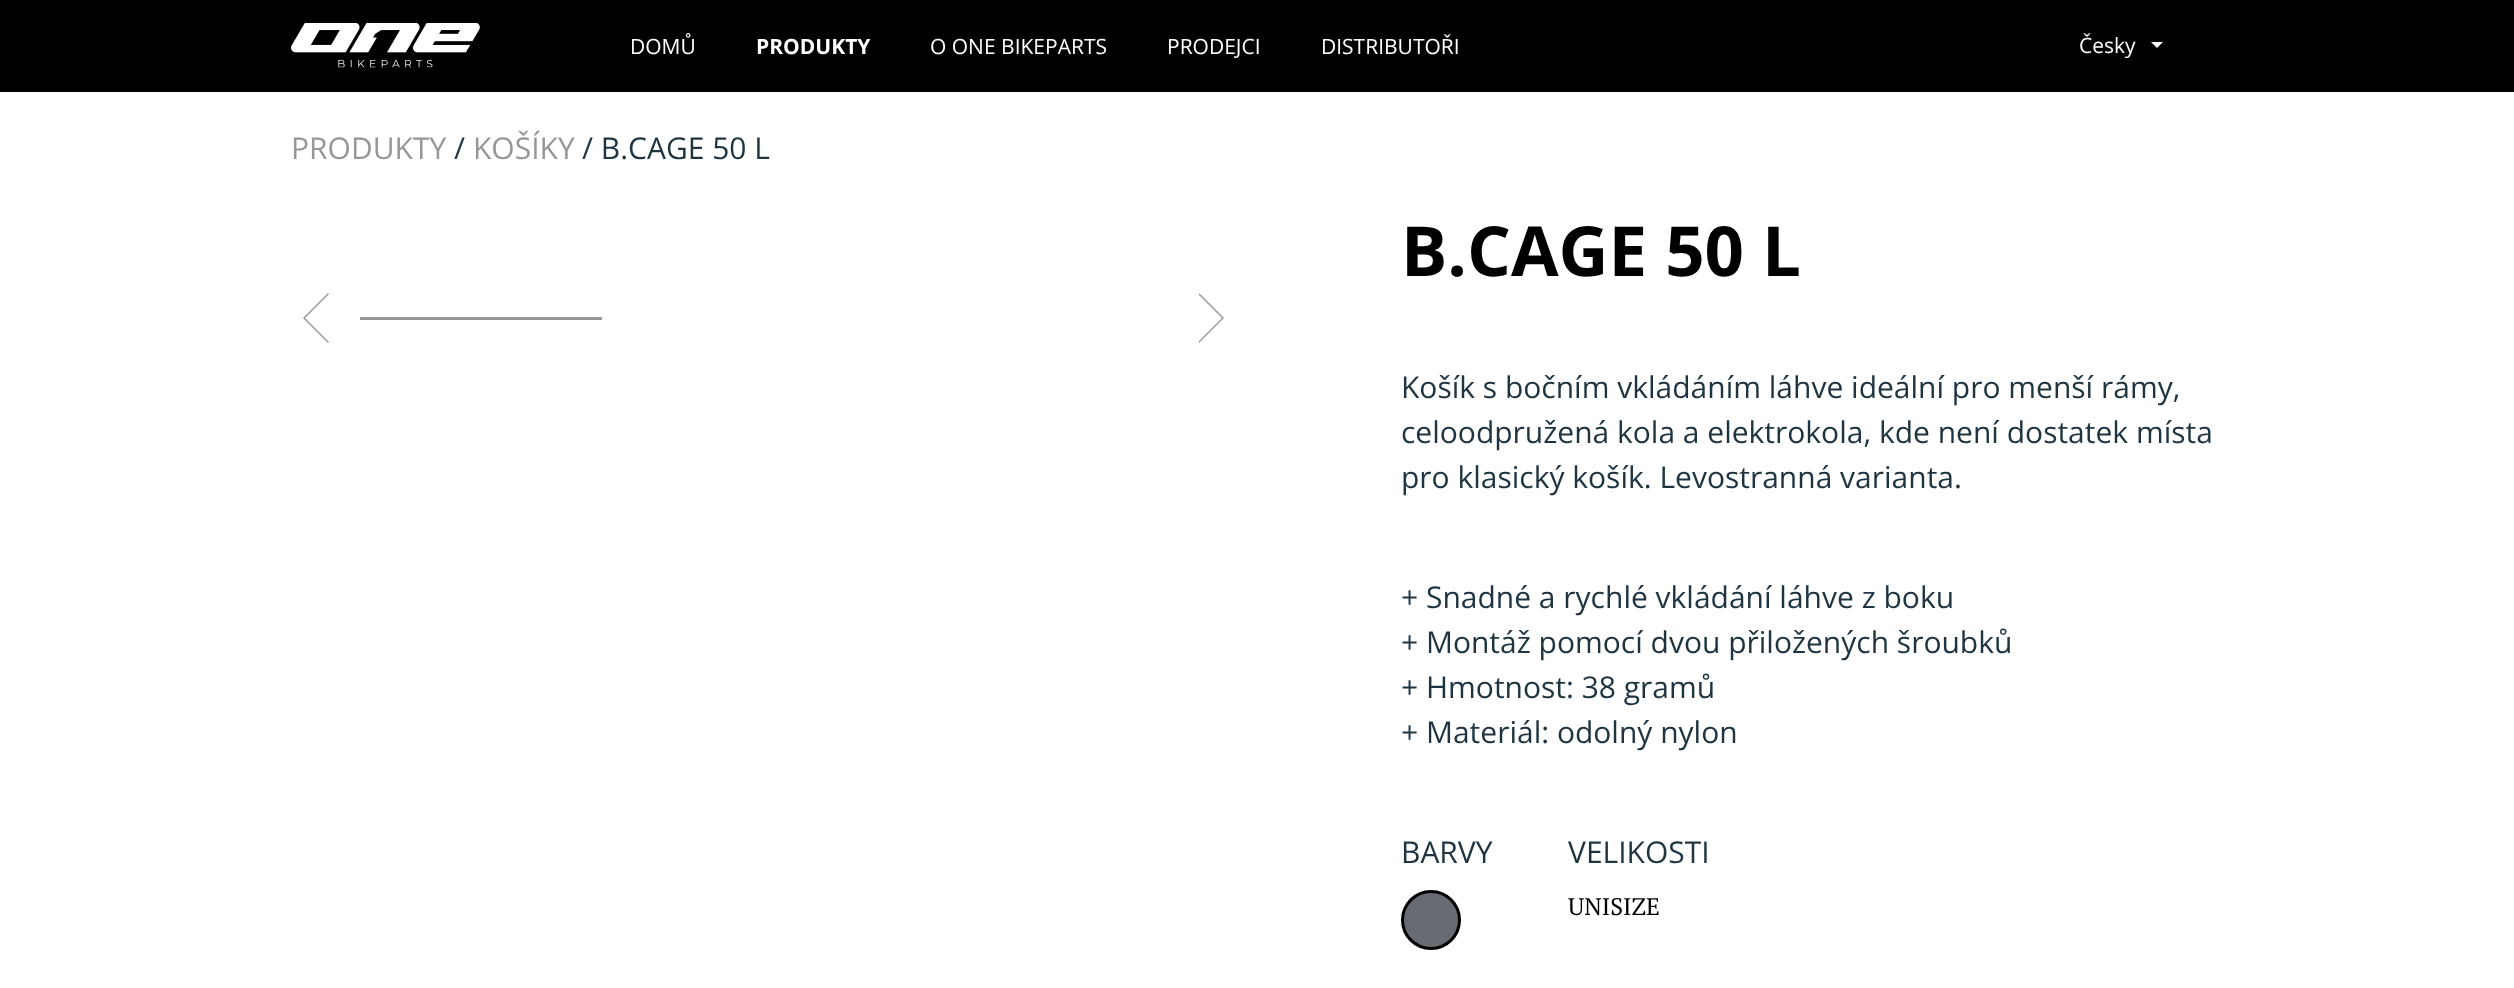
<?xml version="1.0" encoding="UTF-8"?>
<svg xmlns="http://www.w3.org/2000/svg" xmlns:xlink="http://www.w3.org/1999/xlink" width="2514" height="988">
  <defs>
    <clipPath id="clip1"><rect x="1199" y="287" width="27" height="63" /></clipPath>
  </defs>
  <rect width="100%" height="100%" fill="#ffffff" />
  <rect width="2514" height="92" fill="#000000" />
  <image x="291" y="23" width="189" height="45" xlink:href="image1.png" />
  <path d="M 2151 42 h 12 l -6 6 z" fill="#ffffff" />
  <path d="M 328 293 l 1 1 l -24 24 l 24 24 l -1 1 l -25 -25 z" fill="#979797" />
  <g clip-path="url(#clip1)">
    <path d="M 1199 343 l -1 -1 l 24 -24 l -24 -24 l 1 -1 l 25 25 z" fill="#979797" />
  </g>
  <rect x="360" y="317" width="242" height="3" fill="#979797" />
  <circle cx="1431" cy="920" r="28.5" fill="#676c72" stroke="#000000" stroke-width="3" />
  <text x="630" y="54" style="font-family: Open Sans; font-size: 21px; fill: #ffffff">DOMŮ</text>
  <text x="756" y="54" style="font-family: Open Sans; font-size: 21px; font-weight: bold; fill: #ffffff">PRODUKTY</text>
  <text x="930" y="54" style="font-family: Open Sans; font-size: 21px; fill: #ffffff">O ONE BIKEPARTS</text>
  <text x="1167" y="54" style="font-family: Open Sans; font-size: 21px; fill: #ffffff">PRODEJCI</text>
  <text x="1321" y="54" style="font-family: Open Sans; font-size: 21px; fill: #ffffff">DISTRIBUTOŘI</text>
  <text x="2079" y="53" style="font-family: Open Sans; font-size: 21px; fill: #ffffff">Česky</text>
  <text x="291" y="159" style="font-family: Open Sans; font-size: 30px; fill: #979797">PRODUKTY</text>
  <text x="454" y="159" style="font-family: Open Sans; font-size: 30px; fill: #1e3441">/</text>
  <text x="473" y="159" style="font-family: Open Sans; font-size: 30px; fill: #979797">KOŠÍKY</text>
  <text x="582" y="159" style="font-family: Open Sans; font-size: 30px; fill: #1e3441">/ B.CAGE 50 L</text>
  <text x="1401" y="276" style="font-family: Open Sans; font-size: 69px; font-weight: bold; fill: #000000">B.CAGE 50 L</text>
  <text x="1401" y="398" style="font-family: Open Sans; font-size: 30px; fill: #1e3441">Košík s bočním vkládáním láhve ideální pro menší rámy,</text>
  <text x="1401" y="443" style="font-family: Open Sans; font-size: 30px; fill: #1e3441">celoodpružená kola a elektrokola, kde není dostatek místa</text>
  <text x="1401" y="488" style="font-family: Open Sans; font-size: 30px; fill: #1e3441">pro klasický košík. Levostranná varianta.</text>
  <text x="1401" y="608" style="font-family: Open Sans; font-size: 30px; fill: #1e3441">+ Snadné a rychlé vkládání láhve z boku</text>
  <text x="1401" y="653" style="font-family: Open Sans; font-size: 30px; fill: #1e3441">+ Montáž pomocí dvou přiložených šroubků</text>
  <text x="1401" y="698" style="font-family: Open Sans; font-size: 30px; fill: #1e3441">+ Hmotnost: 38 gramů</text>
  <text x="1401" y="743" style="font-family: Open Sans; font-size: 30px; fill: #1e3441">+ Materiál: odolný nylon</text>
  <text x="1401" y="863" style="font-family: Open Sans; font-size: 30px; fill: #1e3441">BARVY</text>
  <text x="1568" y="863" style="font-family: Open Sans; font-size: 30px; fill: #1e3441">VELIKOSTI</text>
  <text x="1568" y="915" style="font-family: PT Serif; font-size: 24px; fill: #000000">UNISIZE</text>
</svg>
